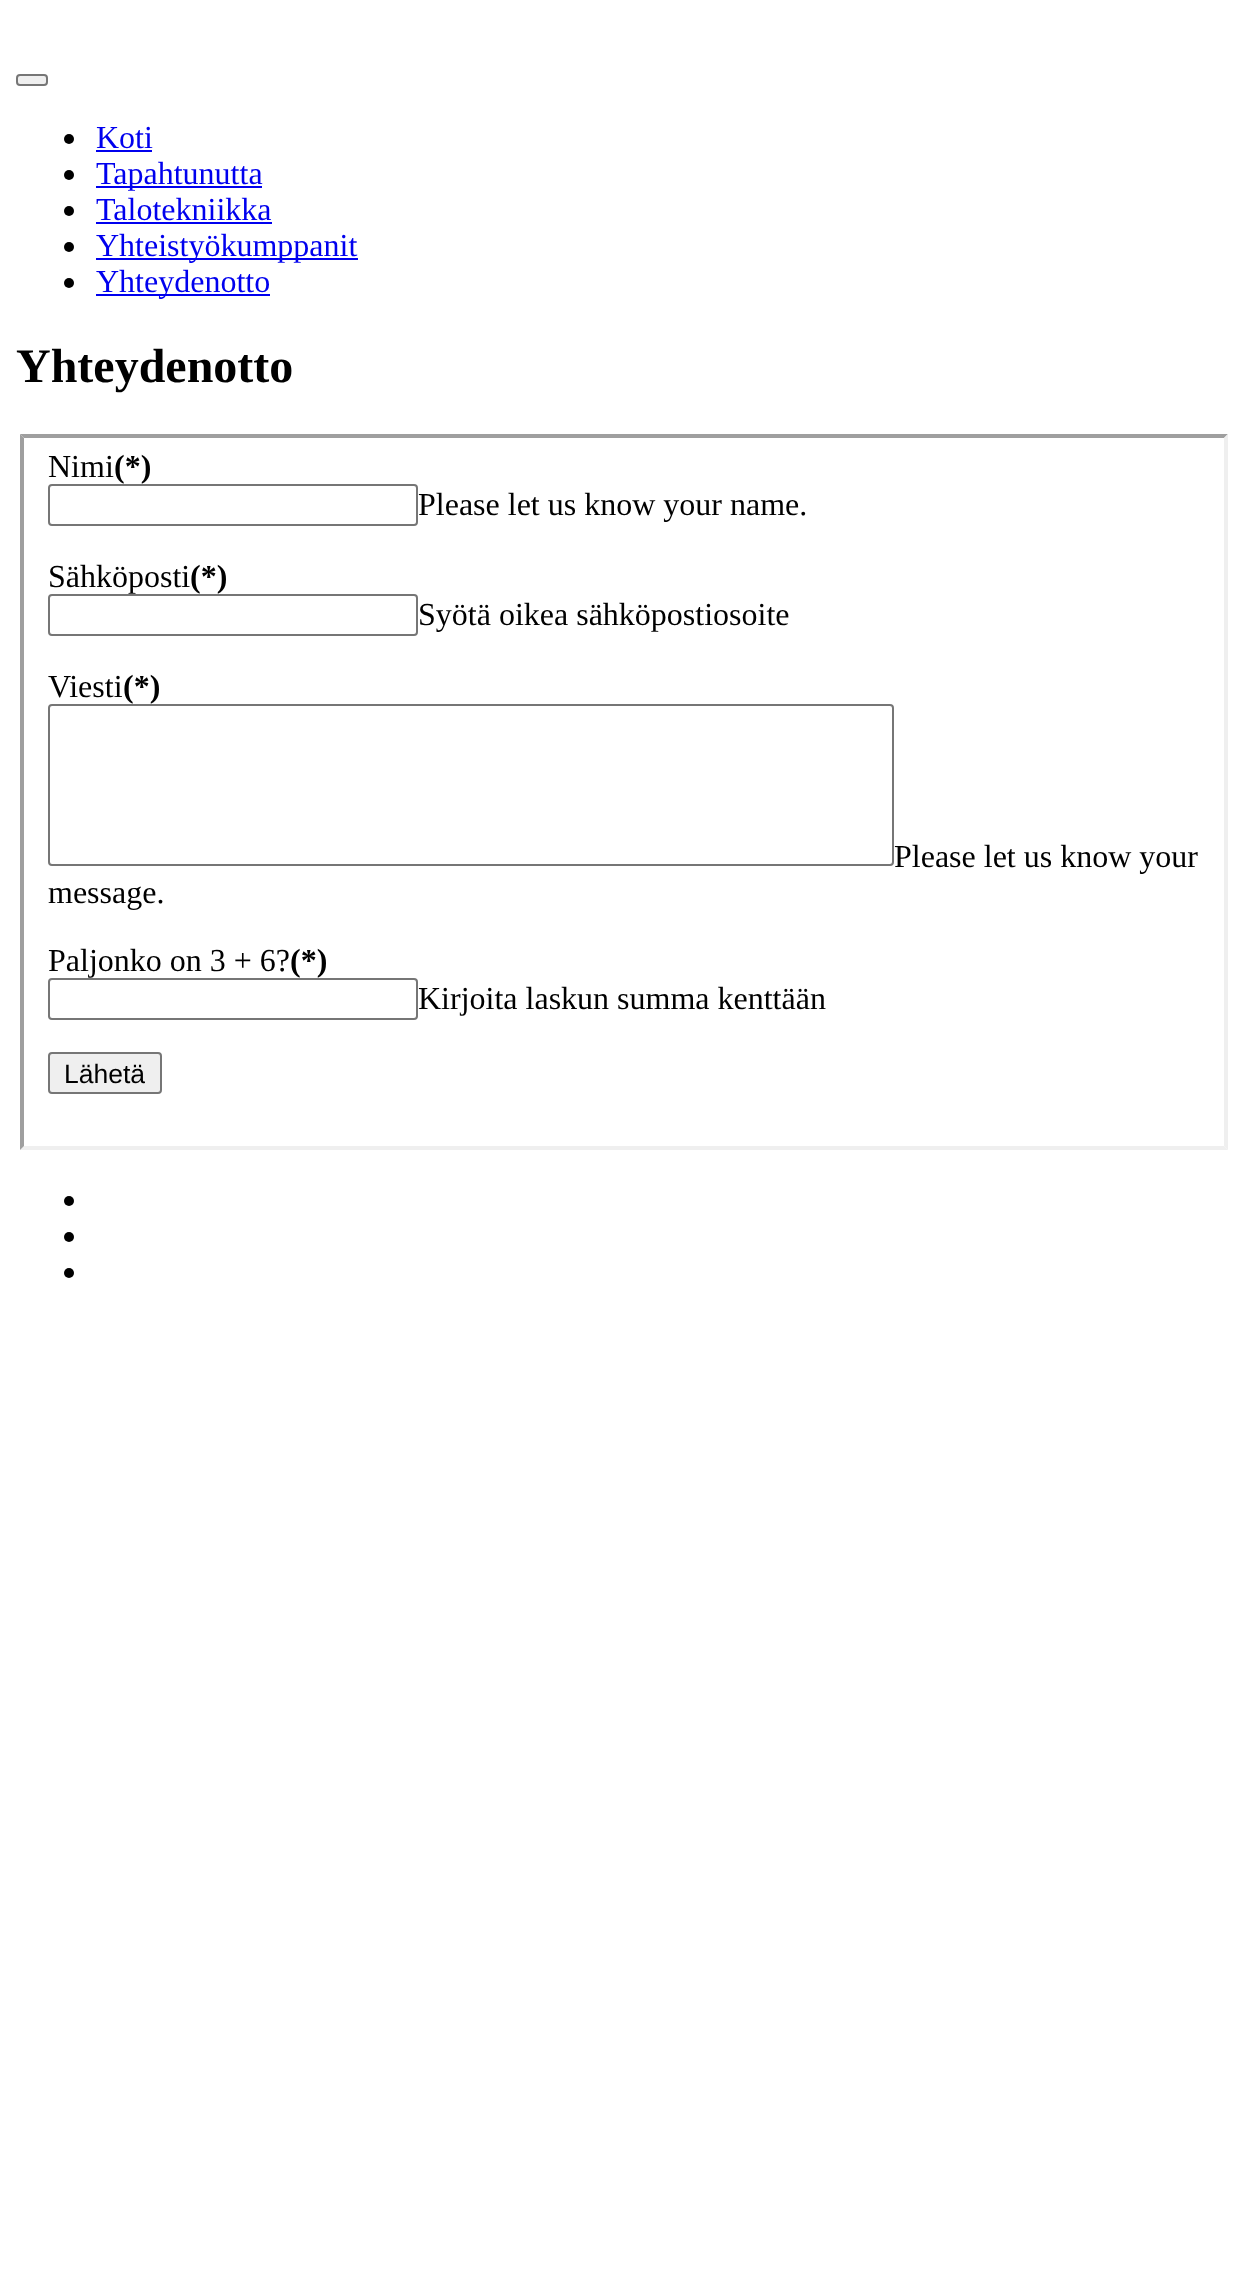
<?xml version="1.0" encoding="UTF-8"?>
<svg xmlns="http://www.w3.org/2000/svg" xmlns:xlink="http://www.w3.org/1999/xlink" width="1247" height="2289">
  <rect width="100%" height="100%" fill="#ffffff" />
  <rect x="17" y="75" width="30" height="10" rx="3" fill="#efefef" stroke="#767676" stroke-width="2" />
  <circle cx="69" cy="139" r="5" fill="#000000" />
  <rect x="96" y="150" width="56" height="2" fill="#0000ee" />
  <circle cx="69" cy="175" r="5" fill="#000000" />
  <rect x="96" y="186" width="166" height="2" fill="#0000ee" />
  <circle cx="69" cy="211" r="5" fill="#000000" />
  <rect x="96" y="222" width="176" height="2" fill="#0000ee" />
  <circle cx="69" cy="247" r="5" fill="#000000" />
  <rect x="96" y="258" width="262" height="2" fill="#0000ee" />
  <circle cx="69" cy="283" r="5" fill="#000000" />
  <rect x="96" y="294" width="174" height="2" fill="#0000ee" />
  <path d="M 20 434 h 1208 l -4 4 h -1200 z" fill="#9f9f9f" />
  <path d="M 1228 434 v 716 l -4 -4 v -708 z" fill="#efefef" />
  <path d="M 1228 1150 h -1208 l 4 -4 h 1200 z" fill="#efefef" />
  <path d="M 20 1150 v -716 l 4 4 v 708 z" fill="#9f9f9f" />
  <rect x="49" y="485" width="368" height="40" rx="3" fill="none" stroke="#767676" stroke-width="2" />
  <rect x="49" y="595" width="368" height="40" rx="3" fill="none" stroke="#767676" stroke-width="2" />
  <rect x="49" y="705" width="844" height="160" rx="3" fill="none" stroke="#767676" stroke-width="2" />
  <rect x="49" y="979" width="368" height="40" rx="3" fill="none" stroke="#767676" stroke-width="2" />
  <rect x="49" y="1053" width="112" height="40" rx="3" fill="#efefef" stroke="#767676" stroke-width="2" />
  <circle cx="69" cy="1201" r="5" fill="#000000" />
  <circle cx="69" cy="1237" r="5" fill="#000000" />
  <circle cx="69" cy="1273" r="5" fill="#000000" />
  <text x="96" y="148" style="font-family: Liberation Serif; font-size: 32px; fill: #0000ee">Koti</text>
  <text x="96" y="184" style="font-family: Liberation Serif; font-size: 32px; fill: #0000ee">Tapahtunutta</text>
  <text x="96" y="220" style="font-family: Liberation Serif; font-size: 32px; fill: #0000ee">Talotekniikka</text>
  <text x="96" y="256" style="font-family: Liberation Serif; font-size: 32px; fill: #0000ee">Yhteistyökumppanit</text>
  <text x="96" y="292" style="font-family: Liberation Serif; font-size: 32px; fill: #0000ee">Yhteydenotto</text>
  <text x="16" y="382" style="font-family: Liberation Serif; font-size: 48px; font-weight: bold; fill: #000000">Yhteydenotto</text>
  <text x="48" y="477" style="font-family: Liberation Serif; font-size: 32px; fill: #000000">Nimi</text>
  <text x="114" y="477" style="font-family: Liberation Serif; font-size: 32px; font-weight: bold; fill: #000000">(*)</text>
  <text x="418" y="515" style="font-family: Liberation Serif; font-size: 32px; fill: #000000">Please let us know your name.</text>
  <text x="48" y="587" style="font-family: Liberation Serif; font-size: 32px; fill: #000000">Sähköposti</text>
  <text x="190" y="587" style="font-family: Liberation Serif; font-size: 32px; font-weight: bold; fill: #000000">(*)</text>
  <text x="418" y="625" style="font-family: Liberation Serif; font-size: 32px; fill: #000000">Syötä oikea sähköpostiosoite</text>
  <text x="48" y="697" style="font-family: Liberation Serif; font-size: 32px; fill: #000000">Viesti</text>
  <text x="123" y="697" style="font-family: Liberation Serif; font-size: 32px; font-weight: bold; fill: #000000">(*)</text>
  <text x="894" y="867" style="font-family: Liberation Serif; font-size: 32px; fill: #000000">Please let us know your</text>
  <text x="48" y="903" style="font-family: Liberation Serif; font-size: 32px; fill: #000000">message.</text>
  <text x="48" y="971" style="font-family: Liberation Serif; font-size: 32px; fill: #000000">Paljonko on 3 + 6?</text>
  <text x="290" y="971" style="font-family: Liberation Serif; font-size: 32px; font-weight: bold; fill: #000000">(*)</text>
  <text x="418" y="1009" style="font-family: Liberation Serif; font-size: 32px; fill: #000000">Kirjoita laskun summa kenttään</text>
  <text x="64" y="1083" style="font-family: Liberation Sans; font-size: 26.5px; fill: #000000">Lähetä</text>
</svg>
